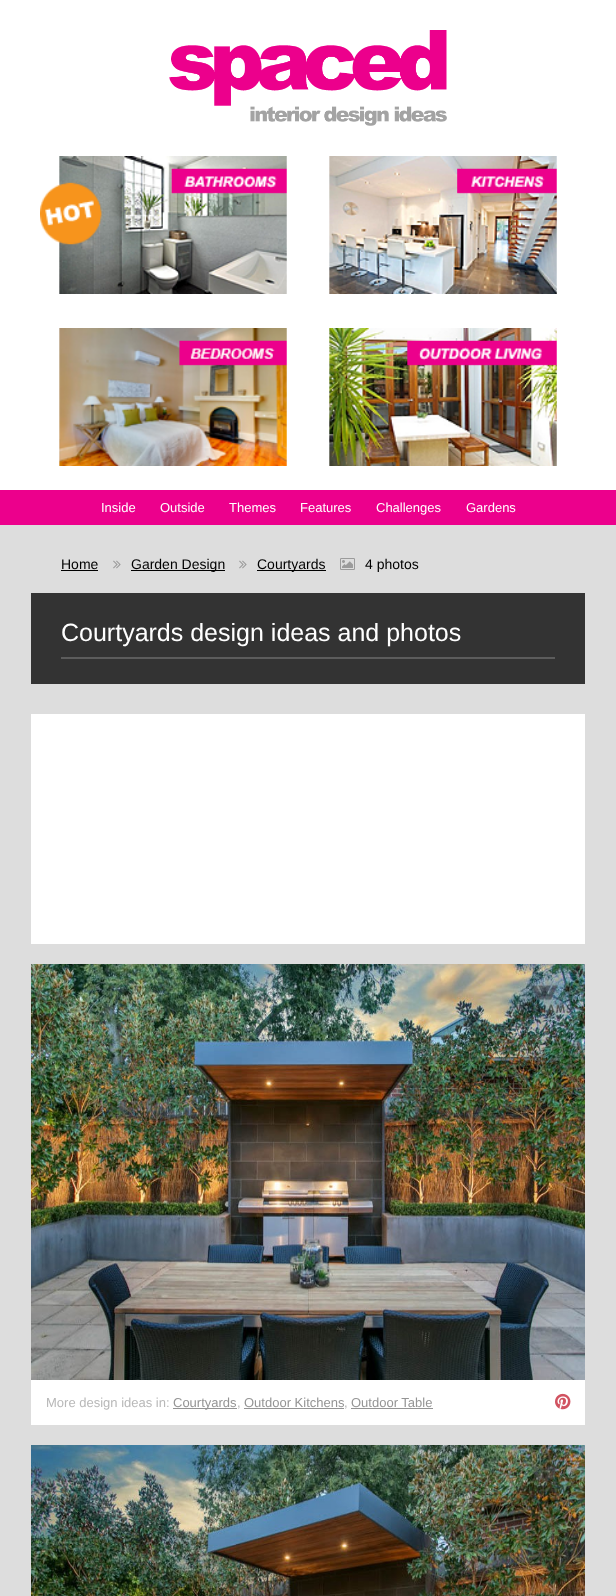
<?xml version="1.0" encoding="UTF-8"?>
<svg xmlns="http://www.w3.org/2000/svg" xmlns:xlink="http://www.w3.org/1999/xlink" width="616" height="1596">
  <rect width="100%" height="100%" fill="#dddddd" />
  <rect width="616" height="490" fill="#ffffff" />
  <image x="169" y="30" width="278" height="96" xlink:href="image1.png" />
  <image x="40" y="156" width="247" height="138" xlink:href="image2.png" />
  <image x="329" y="156" width="228" height="138" xlink:href="image3.png" />
  <image x="59" y="328" width="228" height="138" xlink:href="image4.png" />
  <image x="329" y="328" width="228" height="138" xlink:href="image5.png" />
  <rect y="490" width="616" height="35" fill="#ec008c" />
  <rect x="61" y="570" width="37" height="1" fill="#000000" />
  <image x="113" y="560" width="8" height="9" xlink:href="image6.png" />
  <rect x="131" y="570" width="94" height="1" fill="#000000" />
  <image x="239" y="560" width="8" height="9" xlink:href="image6.png" />
  <rect x="257" y="570" width="69" height="1" fill="#000000" />
  <image x="340" y="558" width="15" height="12" xlink:href="image7.png" />
  <rect x="31" y="593" width="554" height="91" fill="#333333" />
  <rect x="61" y="657" width="494" height="2" fill="#5c5c5c" />
  <rect x="31" y="714" width="554" height="230" fill="#ffffff" />
  <rect x="31" y="1380" width="554" height="45" fill="#ffffff" />
  <image x="31" y="964" width="554" height="416" xlink:href="image8.png" />
  <rect x="173" y="1408" width="64" height="1" fill="#949494" />
  <rect x="244" y="1408" width="100" height="1" fill="#949494" />
  <rect x="351" y="1408" width="82" height="1" fill="#949494" />
  <image x="555" y="1393" width="16" height="17" xlink:href="image9.png" />
  <image x="31" y="1445" width="554" height="151" xlink:href="image10.png" />
  <text x="101" y="512" style="font-family: Liberation Sans; font-size: 13px; fill: #ffffff">Inside</text>
  <text x="160" y="512" style="font-family: Liberation Sans; font-size: 13px; fill: #ffffff">Outside</text>
  <text x="229" y="512" style="font-family: Liberation Sans; font-size: 13px; fill: #ffffff">Themes</text>
  <text x="300" y="512" style="font-family: Liberation Sans; font-size: 13px; fill: #ffffff">Features</text>
  <text x="376" y="512" style="font-family: Liberation Sans; font-size: 13px; fill: #ffffff">Challenges</text>
  <text x="466" y="512" style="font-family: Liberation Sans; font-size: 13px; fill: #ffffff">Gardens</text>
  <text x="61" y="569" style="font-family: Liberation Sans; font-size: 14px; fill: #000000">Home</text>
  <text x="131" y="569" style="font-family: Liberation Sans; font-size: 14px; fill: #000000">Garden Design</text>
  <text x="257" y="569" style="font-family: Liberation Sans; font-size: 14px; fill: #000000">Courtyards</text>
  <text x="365" y="569" style="font-family: Liberation Sans; font-size: 14px; fill: #000000">4 photos</text>
  <text x="61" y="641" style="font-family: Liberation Sans; font-size: 25px; fill: #ffffff">Courtyards design ideas and photos</text>
  <text x="46" y="1407" style="font-family: Liberation Sans; font-size: 13px; fill: #b8b8b8">More design ideas in:</text>
  <text x="173" y="1407" style="font-family: Liberation Sans; font-size: 13px; fill: #949494">Courtyards</text>
  <text x="237" y="1407" style="font-family: Liberation Sans; font-size: 13px; fill: #b8b8b8">,</text>
  <text x="244" y="1407" style="font-family: Liberation Sans; font-size: 13px; fill: #949494">Outdoor Kitchens</text>
  <text x="344" y="1407" style="font-family: Liberation Sans; font-size: 13px; fill: #b8b8b8">,</text>
  <text x="351" y="1407" style="font-family: Liberation Sans; font-size: 13px; fill: #949494">Outdoor Table</text>
</svg>
